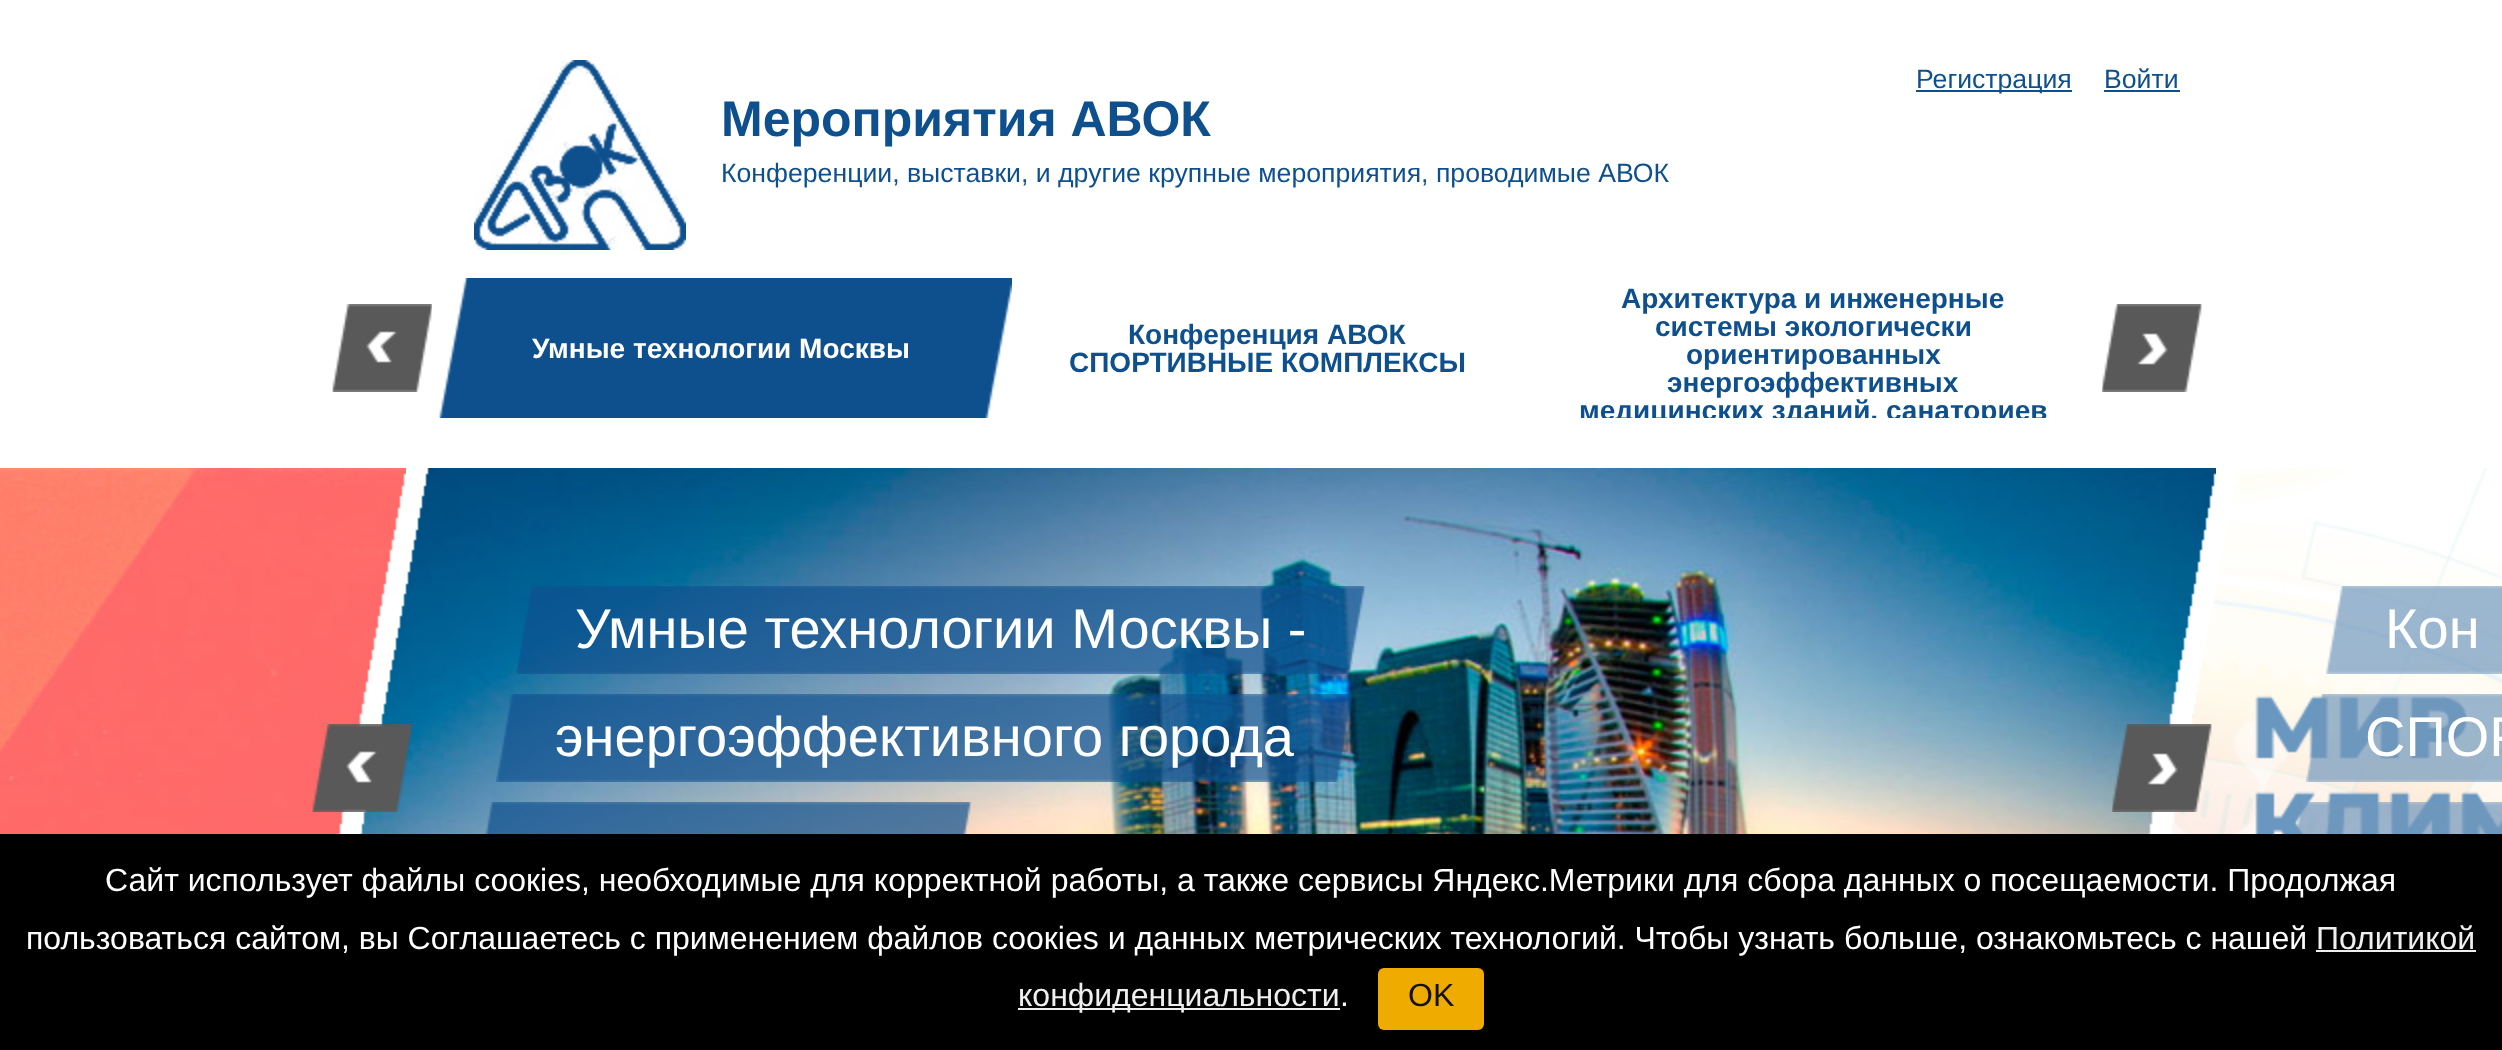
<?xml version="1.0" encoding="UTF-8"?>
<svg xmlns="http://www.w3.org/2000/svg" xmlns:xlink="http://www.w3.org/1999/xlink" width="2502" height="1050">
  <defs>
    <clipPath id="clip1"><rect x="432" y="278" width="1690" height="140" /></clipPath>
  </defs>
  <rect width="100%" height="100%" fill="#ffffff" />
  <image x="474" y="60" width="212" height="190" xlink:href="image1.png" />
  <rect x="1916" y="90" width="156" height="2" fill="#0e508e" />
  <rect x="2104" y="90" width="76" height="2" fill="#0e508e" />
  <image x="332" y="304" width="100" height="88" xlink:href="image2.png" />
  <image x="439" y="278" width="39" height="140" xlink:href="image3.png" />
  <rect x="478" y="278" width="488" height="140" fill="#0e508e" />
  <image x="966" y="278" width="46" height="140" xlink:href="image4.png" />
  <image x="2102" y="304" width="100" height="88" xlink:href="image5.png" />
  <image x="0" y="468" width="406" height="366" xlink:href="image7.png" />
  <image x="2169" y="468" width="333" height="366" xlink:href="image18.png" />
  <image x="359" y="468" width="1857" height="366" xlink:href="image8.png" />
  <rect y="708" width="363" height="20" fill="#ffffff" fill-opacity="0.41" />
  <rect y="728" width="330" height="20" fill="#ffffff" fill-opacity="0.41" />
  <rect y="748" width="326" height="20" fill="#ffffff" fill-opacity="0.41" />
  <rect y="768" width="322" height="20" fill="#ffffff" fill-opacity="0.41" />
  <rect y="788" width="318" height="20" fill="#ffffff" fill-opacity="0.41" />
  <rect y="808" width="345" height="20" fill="#ffffff" fill-opacity="0.41" />
  <image x="312" y="724" width="100" height="88" xlink:href="image6.png" />
  <rect y="468" width="406" height="20" fill="#ffffff" fill-opacity="0.41" />
  <rect y="488" width="403" height="20" fill="#ffffff" fill-opacity="0.41" />
  <rect y="508" width="401" height="20" fill="#ffffff" fill-opacity="0.41" />
  <rect y="528" width="397" height="20" fill="#ffffff" fill-opacity="0.41" />
  <rect y="548" width="393" height="20" fill="#ffffff" fill-opacity="0.41" />
  <rect y="568" width="389" height="20" fill="#ffffff" fill-opacity="0.41" />
  <rect y="588" width="385" height="20" fill="#ffffff" fill-opacity="0.41" />
  <rect y="608" width="381" height="20" fill="#ffffff" fill-opacity="0.41" />
  <rect y="628" width="379" height="20" fill="#ffffff" fill-opacity="0.41" />
  <rect y="648" width="375" height="20" fill="#ffffff" fill-opacity="0.41" />
  <rect y="668" width="371" height="20" fill="#ffffff" fill-opacity="0.41" />
  <rect y="688" width="367" height="20" fill="#ffffff" fill-opacity="0.41" />
  <rect y="828" width="344" height="6" fill="#ffffff" fill-opacity="0.41" />
  <image x="516" y="586" width="20" height="88" xlink:href="image9.png" />
  <image x="536" y="586" width="810" height="88" xlink:href="image10.png" />
  <image x="1346" y="586" width="20" height="88" xlink:href="image11.png" />
  <image x="496" y="694" width="20" height="88" xlink:href="image12.png" />
  <image x="516" y="694" width="818" height="88" xlink:href="image13.png" />
  <image x="1334" y="694" width="20" height="88" xlink:href="image14.png" />
  <image x="485" y="802" width="11" height="32" xlink:href="image15.png" />
  <image x="496" y="802" width="456" height="32" xlink:href="image16.png" />
  <image x="952" y="802" width="20" height="32" xlink:href="image17.png" />
  <rect x="2236" y="468" width="251" height="20" fill="#ffffff" fill-opacity="0.41" />
  <rect x="2234" y="488" width="246" height="20" fill="#ffffff" fill-opacity="0.41" />
  <rect x="2313" y="508" width="158" height="20" fill="#ffffff" fill-opacity="0.41" />
  <rect x="2307" y="528" width="156" height="20" fill="#ffffff" fill-opacity="0.41" />
  <rect x="2220" y="548" width="261" height="20" fill="#ffffff" fill-opacity="0.41" />
  <image x="2326" y="586" width="20" height="88" xlink:href="image19.png" />
  <image x="2346" y="586" width="156" height="88" xlink:href="image20.png" />
  <rect x="2216" y="568" width="286" height="20" fill="#ffffff" fill-opacity="0.41" />
  <rect x="2212" y="588" width="290" height="20" fill="#ffffff" fill-opacity="0.41" />
  <image x="2306" y="694" width="20" height="88" xlink:href="image21.png" />
  <image x="2326" y="694" width="176" height="88" xlink:href="image22.png" />
  <image x="2295" y="802" width="11" height="32" xlink:href="image23.png" />
  <image x="2306" y="802" width="196" height="32" xlink:href="image24.png" />
  <rect x="2197" y="668" width="305" height="20" fill="#ffffff" fill-opacity="0.41" />
  <rect x="2193" y="688" width="309" height="20" fill="#ffffff" fill-opacity="0.41" />
  <rect x="2198" y="768" width="304" height="20" fill="#ffffff" fill-opacity="0.41" />
  <rect x="2194" y="788" width="308" height="20" fill="#ffffff" fill-opacity="0.41" />
  <rect x="2172" y="808" width="330" height="20" fill="#ffffff" fill-opacity="0.41" />
  <rect x="2164" y="828" width="338" height="6" fill="#ffffff" fill-opacity="0.41" />
  <rect y="834" width="2502" height="216" fill="#000000" />
  <rect x="2316" y="950" width="160" height="2" fill="#efefef" />
  <rect x="1018" y="1008" width="322" height="2" fill="#efefef" />
  <rect x="1378" y="968" width="106" height="62" rx="6" fill="#f0ab00" />
  <text x="1916" y="88" style="font-family: Liberation Sans; font-size: 26.65px; fill: #0e508e">Регистрация</text>
  <text x="2104" y="88" style="font-family: Liberation Sans; font-size: 26.65px; fill: #0e508e">Войти</text>
  <text x="721" y="136" style="font-family: Liberation Sans; font-size: 50px; font-weight: bold; fill: #0e508e">Мероприятия АВОК</text>
  <text x="721" y="182" style="font-family: Liberation Sans; font-size: 26.65px; fill: #0e508e">Конференции, выставки, и другие крупные мероприятия, проводимые АВОК</text>
  <text x="532" y="358" style="font-family: Liberation Sans; font-size: 28px; font-weight: bold; fill: #ffffff">Умные технологии Москвы</text>
  <text x="1128" y="344" style="font-family: Liberation Sans; font-size: 28px; font-weight: bold; fill: #0e508e">Конференция АВОК</text>
  <text x="1069" y="372" style="font-family: Liberation Sans; font-size: 28px; font-weight: bold; fill: #0e508e">СПОРТИВНЫЕ КОМПЛЕКСЫ</text>
  <text x="1621" y="308" style="font-family: Liberation Sans; font-size: 28px; font-weight: bold; fill: #0e508e">Архитектура и инженерные</text>
  <text x="1655" y="336" style="font-family: Liberation Sans; font-size: 28px; font-weight: bold; fill: #0e508e">системы экологически</text>
  <text x="1686" y="364" style="font-family: Liberation Sans; font-size: 28px; font-weight: bold; fill: #0e508e">ориентированных</text>
  <text x="1667" y="392" style="font-family: Liberation Sans; font-size: 28px; font-weight: bold; fill: #0e508e">энергоэффективных</text>
  <g clip-path="url(#clip1)">
    <text x="1579" y="420" style="font-family: Liberation Sans; font-size: 28px; font-weight: bold; fill: #0e508e">медицинских зданий, санаториев</text>
  </g>
  <text x="575" y="648" style="font-family: Liberation Sans; font-size: 56px; fill: #ffffff">Умные технологии Москвы -</text>
  <text x="555" y="756" style="font-family: Liberation Sans; font-size: 56px; fill: #ffffff">энергоэффективного города</text>
  <text x="2385" y="648" style="font-family: Liberation Sans; font-size: 56px; fill: #ffffff">Кон</text>
  <rect x="2210" y="608" width="292" height="20" fill="#ffffff" fill-opacity="0.41" />
  <text x="2365" y="756" style="font-family: Liberation Sans; font-size: 56px; fill: #ffffff">СПОР</text>
  <rect x="2206" y="628" width="296" height="20" fill="#ffffff" fill-opacity="0.41" />
  <rect x="2201" y="648" width="301" height="20" fill="#ffffff" fill-opacity="0.41" />
  <rect x="2189" y="708" width="313" height="20" fill="#ffffff" fill-opacity="0.41" />
  <rect x="2206" y="728" width="296" height="20" fill="#ffffff" fill-opacity="0.41" />
  <rect x="2202" y="748" width="300" height="20" fill="#ffffff" fill-opacity="0.41" />
  <image x="2112" y="724" width="100" height="88" xlink:href="image25.png" />
  <text x="105" y="891" style="font-family: Liberation Sans; font-size: 32px; fill: #ffffff">Сайт использует файлы соокies, необходимые для корректной работы, а также сервисы Яндекс.Метрики для сбора данных о посещаемости. Продолжая</text>
  <text x="26" y="949" style="font-family: Liberation Sans; font-size: 32px; fill: #ffffff">пользоваться сайтом, вы Соглашаетесь с применением файлов соокies и данных метрических технологий. Чтобы узнать больше, ознакомьтесь с нашей</text>
  <text x="2316" y="949" style="font-family: Liberation Sans; font-size: 32px; fill: #efefef">Политикой</text>
  <text x="1018" y="1006" style="font-family: Liberation Sans; font-size: 32px; fill: #efefef">конфиденциальности</text>
  <text x="1340" y="1006" style="font-family: Liberation Sans; font-size: 32px; fill: #ffffff">.</text>
  <text x="1408" y="1006" style="font-family: Liberation Sans; font-size: 32px; fill: #131313">OK</text>
</svg>
